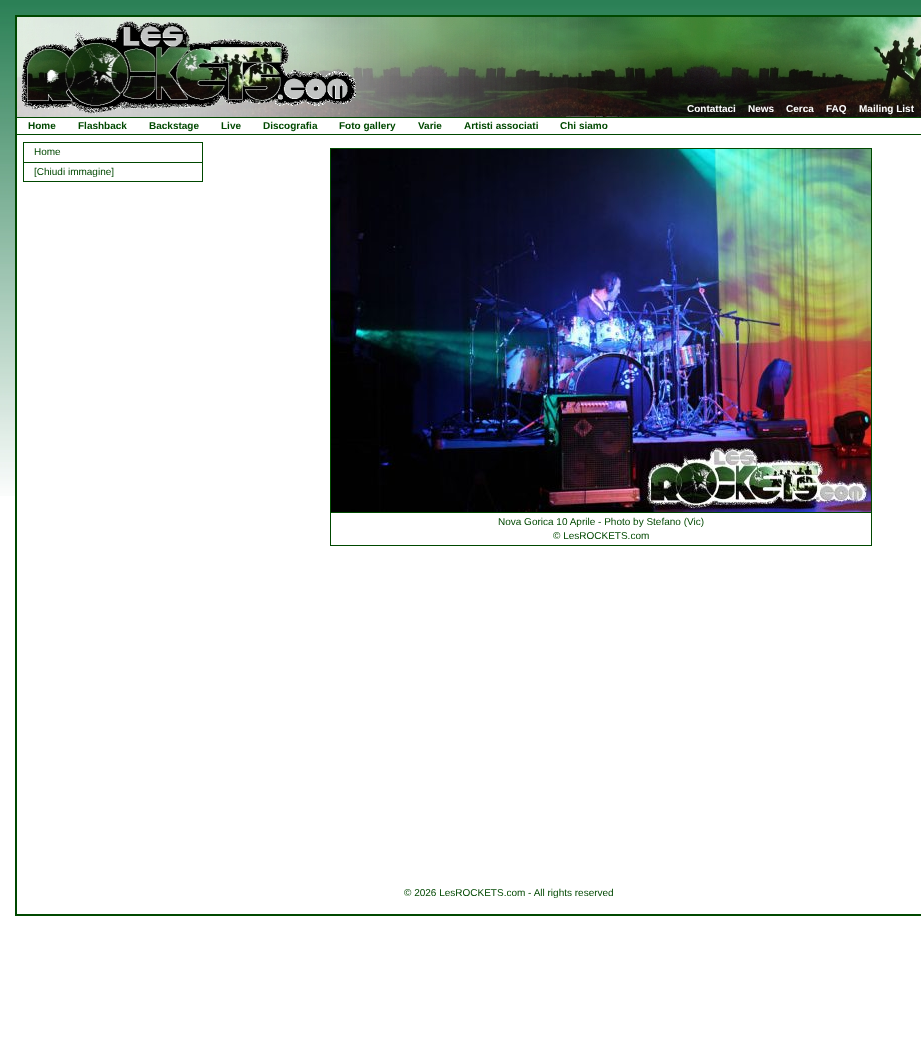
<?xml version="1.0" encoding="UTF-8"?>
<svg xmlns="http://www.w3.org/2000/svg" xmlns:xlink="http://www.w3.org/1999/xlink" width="921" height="1056">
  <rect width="100%" height="100%" fill="#ffffff" />
  <image x="0" y="0" width="921" height="496" xlink:href="image1.png" />
  <rect x="17" y="118" width="904" height="378" fill="#ffffff" />
  <rect x="15" y="15" width="906" height="2" fill="#004800" />
  <rect x="15" y="15" width="2" height="857" fill="#004800" />
  <image x="17" y="17" width="904" height="100" xlink:href="image2.png" />
  <rect x="17" y="117" width="904" height="1" fill="#004800" />
  <rect x="17" y="134" width="904" height="1" fill="#004800" />
  <rect x="23.5" y="142.5" width="179" height="20" fill="none" stroke="#004800" />
  <rect x="23.5" y="162.5" width="179" height="19" fill="none" stroke="#004800" />
  <rect x="330" y="148" width="542" height="1" fill="#004800" />
  <rect x="330" y="148" width="1" height="364" fill="#004800" />
  <image x="331" y="149" width="540" height="363" xlink:href="image3.png" />
  <rect x="871" y="148" width="1" height="364" fill="#004800" />
  <rect x="330.5" y="512.5" width="541" height="33" fill="none" stroke="#004800" />
  <rect x="15" y="914" width="906" height="2" fill="#004800" />
  <rect x="15" y="872" width="2" height="44" fill="#004800" />
  <text x="687" y="112" style="font-family: Liberation Sans; font-size: 10px; font-weight: bold; fill: #ffffff">Contattaci</text>
  <text x="748" y="112" style="font-family: Liberation Sans; font-size: 10px; font-weight: bold; fill: #ffffff">News</text>
  <text x="786" y="112" style="font-family: Liberation Sans; font-size: 10px; font-weight: bold; fill: #ffffff">Cerca</text>
  <text x="826" y="112" style="font-family: Liberation Sans; font-size: 10px; font-weight: bold; fill: #ffffff">FAQ</text>
  <text x="859" y="112" style="font-family: Liberation Sans; font-size: 10px; font-weight: bold; fill: #ffffff">Mailing List</text>
  <text x="28" y="129" style="font-family: Liberation Sans; font-size: 10px; font-weight: bold; fill: #004800">Home</text>
  <text x="78" y="129" style="font-family: Liberation Sans; font-size: 10px; font-weight: bold; fill: #004800">Flashback</text>
  <text x="149" y="129" style="font-family: Liberation Sans; font-size: 10px; font-weight: bold; fill: #004800">Backstage</text>
  <text x="221" y="129" style="font-family: Liberation Sans; font-size: 10px; font-weight: bold; fill: #004800">Live</text>
  <text x="263" y="129" style="font-family: Liberation Sans; font-size: 10px; font-weight: bold; fill: #004800">Discografia</text>
  <text x="339" y="129" style="font-family: Liberation Sans; font-size: 10px; font-weight: bold; fill: #004800">Foto gallery</text>
  <text x="418" y="129" style="font-family: Liberation Sans; font-size: 10px; font-weight: bold; fill: #004800">Varie</text>
  <text x="464" y="129" style="font-family: Liberation Sans; font-size: 10px; font-weight: bold; fill: #004800">Artisti associati</text>
  <text x="560" y="129" style="font-family: Liberation Sans; font-size: 10px; font-weight: bold; fill: #004800">Chi siamo</text>
  <text x="34" y="155" style="font-family: Liberation Sans; font-size: 10px; fill: #004800">Home</text>
  <text x="34" y="175" style="font-family: Liberation Sans; font-size: 10px; fill: #004800">[Chiudi immagine]</text>
  <text x="498" y="525" style="font-family: Liberation Sans; font-size: 10px; fill: #004800">Nova Gorica 10 Aprile - Photo by Stefano (Vic)</text>
  <text x="553" y="539" style="font-family: Liberation Sans; font-size: 10px; fill: #004800">© LesROCKETS.com</text>
  <text x="404" y="896" style="font-family: Liberation Sans; font-size: 10px; fill: #004800">© 2026 LesROCKETS.com - All rights reserved</text>
</svg>
